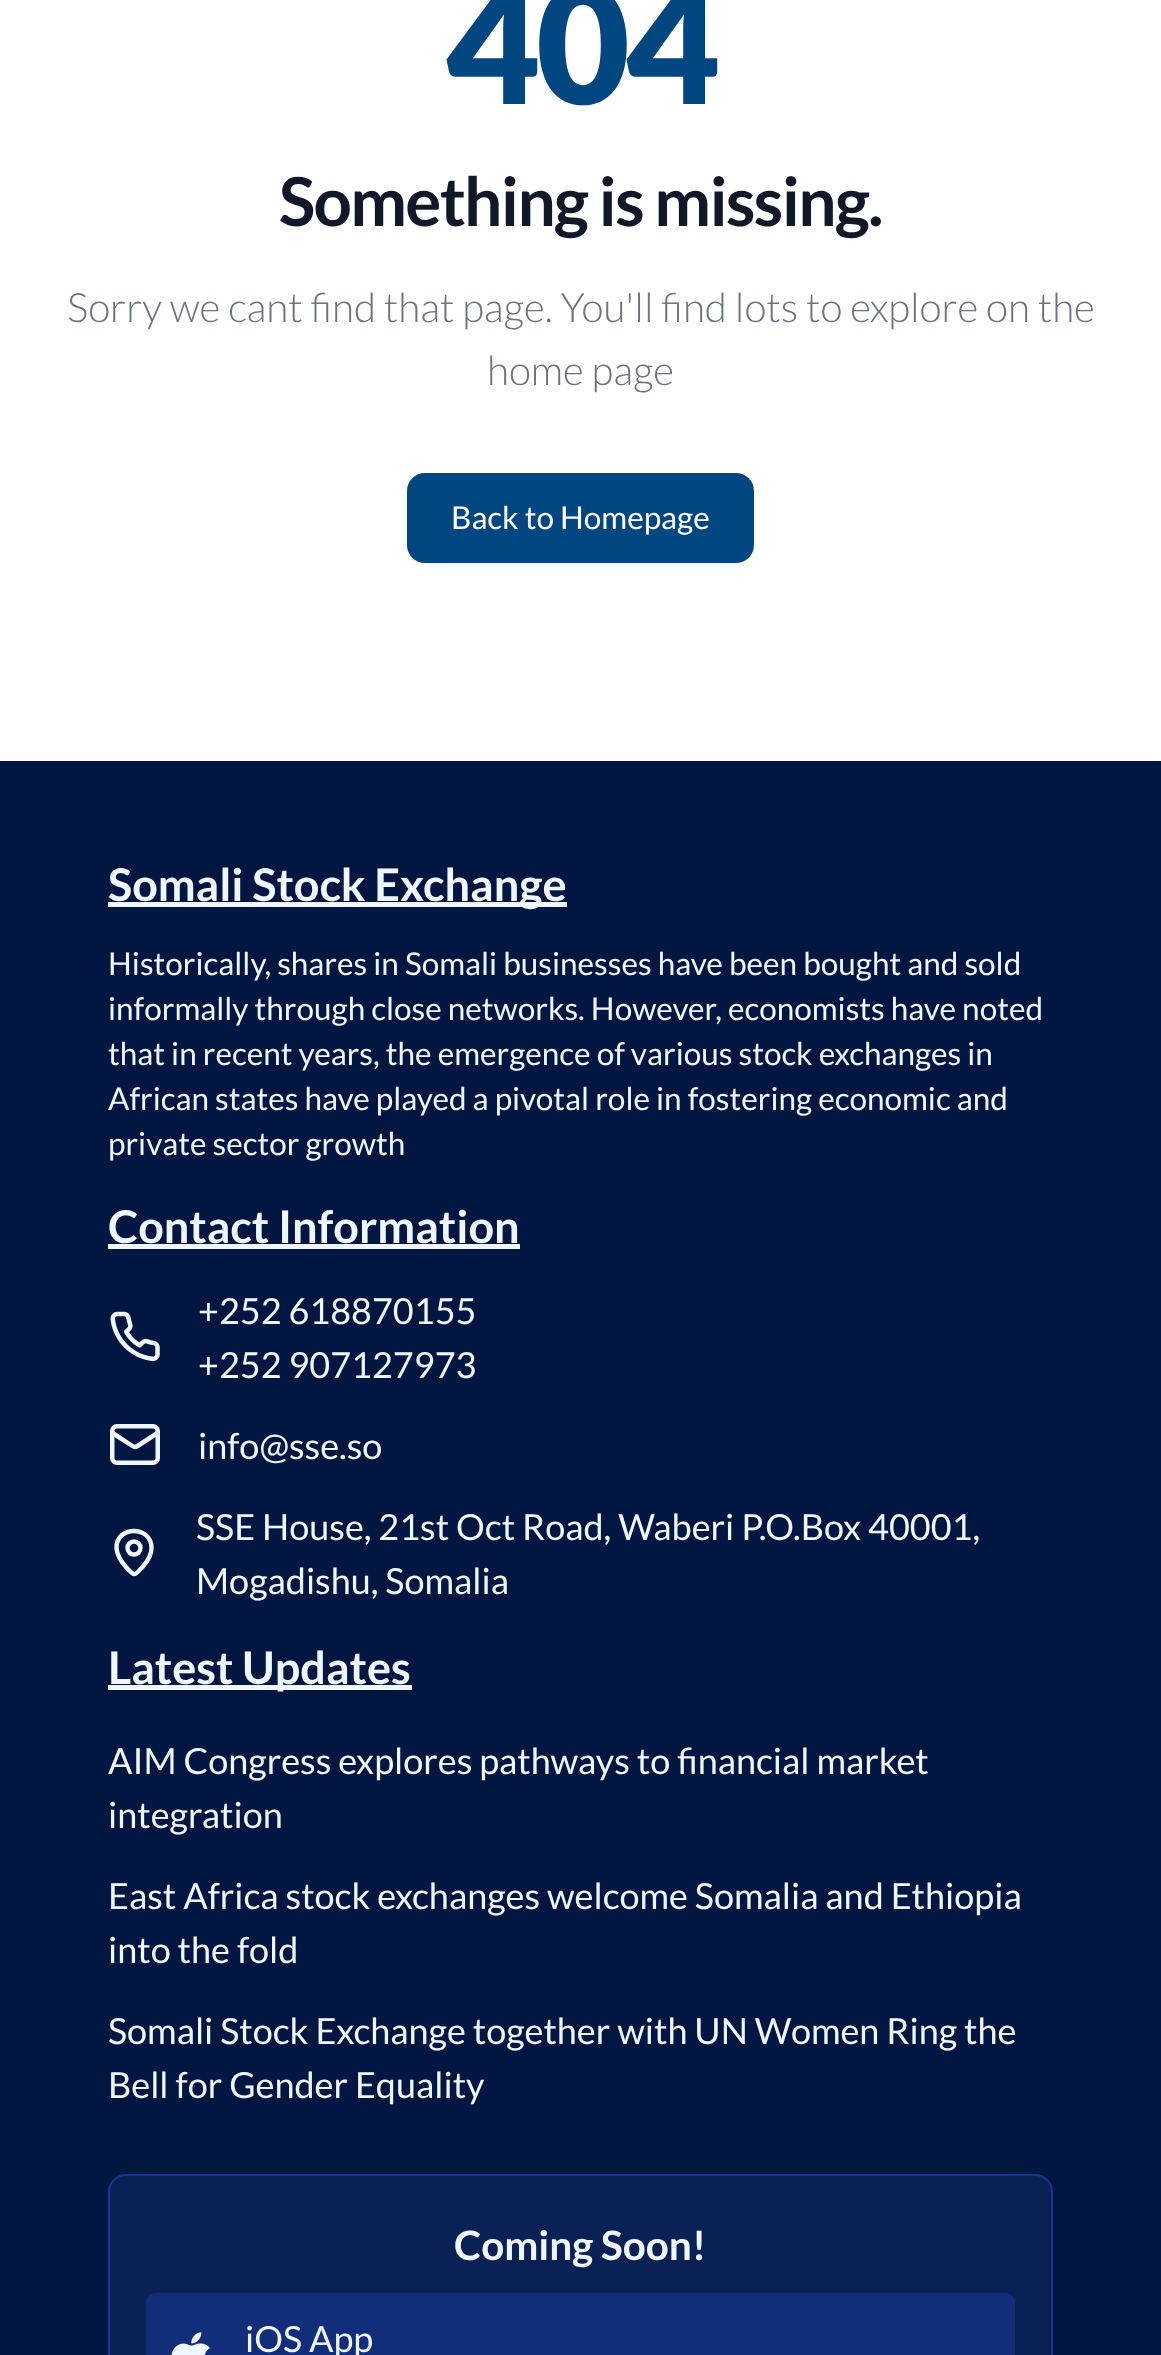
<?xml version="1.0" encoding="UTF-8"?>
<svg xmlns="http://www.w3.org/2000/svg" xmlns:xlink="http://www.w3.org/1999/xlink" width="1161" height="2355">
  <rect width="100%" height="100%" fill="#ffffff" />
  <rect x="407" y="473" width="347" height="90" rx="18" fill="#004681" />
  <rect y="761" width="1161" height="1594" fill="#011640" />
  <rect x="108" y="902" width="459" height="5" fill="#eff6ff" />
  <rect x="108" y="1244" width="412" height="5" fill="#eff6ff" />
  <image x="110" y="1311" width="50" height="51" xlink:href="image1.png" />
  <rect x="112.25" y="1426.25" width="45.5" height="36.5" rx="4.75" fill="none" stroke="#eff6ff" stroke-width="4.5" />
  <path d="M 157.5 1433 l -20 13 c -1.5 1 -3.5 1 -5 0 l -20 -13" fill="none" stroke="#eff6ff" stroke-width="4.5" stroke-linecap="round" stroke-linejoin="round" />
  <path d="M 151.5 1548 c 0 7.5 -4.5 14 -9 19 c -8.5 9.5 -8 9.5 -16.5 0 c -4.5 -5 -9 -11.5 -9.5 -19 c -0.5 -22.5 35 -23 35 0" fill="none" stroke="#eff6ff" stroke-width="4.4" stroke-linecap="round" stroke-linejoin="round" />
  <circle cx="134" cy="1548" r="6.5" fill="none" stroke="#eff6ff" stroke-width="4.4" />
  <rect x="108" y="1685" width="304" height="5" fill="#eff6ff" />
  <rect x="108" y="2174" width="945" height="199" rx="18" fill="#0a2156" />
  <rect x="109" y="2175" width="943" height="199" rx="17" fill="none" stroke="#1d4ed8" stroke-opacity="0.5" stroke-width="2" />
  <rect x="146" y="2293" width="869" height="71" rx="9" fill="#122d7a" />
  <image x="171" y="2332" width="39" height="23" xlink:href="image2.png" />
  <text x="446" y="104" style="font-family: Lato; font-size: 162px; font-weight: 900; letter-spacing: -4px; fill: #004681">404</text>
  <text x="279" y="226" style="font-family: Lato; font-size: 67.5px; font-weight: bold; letter-spacing: -1.7px; fill: #111827">Something is missing.</text>
  <text x="67" y="322" style="font-family: Lato; font-size: 40.5px; font-weight: 300; fill: #6b7280">Sorry we cant find that page. You'll find lots to explore on the</text>
  <text x="487" y="385" style="font-family: Lato; font-size: 40.5px; font-weight: 300; fill: #6b7280">home page</text>
  <text x="451" y="529" style="font-family: Lato; font-size: 31.5px; fill: #ffffff">Back to Homepage</text>
  <text x="108" y="901" style="font-family: Lato; font-size: 45px; font-weight: bold; fill: #eff6ff">Somali Stock Exchange</text>
  <text x="108" y="975" style="font-family: Lato; font-size: 31.5px; fill: #eff6ff">Historically, shares in Somali businesses have been bought and sold</text>
  <text x="108" y="1020" style="font-family: Lato; font-size: 31.5px; fill: #eff6ff">informally through close networks. However, economists have noted</text>
  <text x="108" y="1065" style="font-family: Lato; font-size: 31.5px; fill: #eff6ff">that in recent years, the emergence of various stock exchanges in</text>
  <text x="108" y="1110" style="font-family: Lato; font-size: 31.5px; fill: #eff6ff">African states have played a pivotal role in fostering economic and</text>
  <text x="108" y="1155" style="font-family: Lato; font-size: 31.5px; fill: #eff6ff">private sector growth</text>
  <text x="108" y="1243" style="font-family: Lato; font-size: 45px; font-weight: bold; fill: #eff6ff">Contact Information</text>
  <text x="198" y="1324" style="font-family: Lato; font-size: 36px; fill: #eff6ff">+252 618870155</text>
  <text x="198" y="1378" style="font-family: Lato; font-size: 36px; fill: #eff6ff">+252 907127973</text>
  <text x="198" y="1459" style="font-family: Lato; font-size: 36px; fill: #eff6ff">info@sse.so</text>
  <text x="196" y="1540" style="font-family: Lato; font-size: 36px; fill: #eff6ff">SSE House, 21st Oct Road, Waberi P.O.Box 40001,</text>
  <text x="196" y="1594" style="font-family: Lato; font-size: 36px; fill: #eff6ff">Mogadishu, Somalia</text>
  <text x="108" y="1684" style="font-family: Lato; font-size: 45px; font-weight: bold; fill: #eff6ff">Latest Updates</text>
  <text x="108" y="1774" style="font-family: Lato; font-size: 36px; fill: #eff6ff">AIM Congress explores pathways to financial market</text>
  <text x="108" y="1828" style="font-family: Lato; font-size: 36px; fill: #eff6ff">integration</text>
  <text x="108" y="1909" style="font-family: Lato; font-size: 36px; fill: #eff6ff">East Africa stock exchanges welcome Somalia and Ethiopia</text>
  <text x="108" y="1963" style="font-family: Lato; font-size: 36px; fill: #eff6ff">into the fold</text>
  <text x="108" y="2044" style="font-family: Lato; font-size: 36px; fill: #eff6ff">Somali Stock Exchange together with UN Women Ring the</text>
  <text x="108" y="2098" style="font-family: Lato; font-size: 36px; fill: #eff6ff">Bell for Gender Equality</text>
  <text x="454" y="2260" style="font-family: Lato; font-size: 40.5px; font-weight: bold; fill: #eff6ff">Coming Soon!</text>
  <text x="245" y="2352" style="font-family: Lato; font-size: 36px; fill: #eff6ff">iOS App</text>
</svg>
